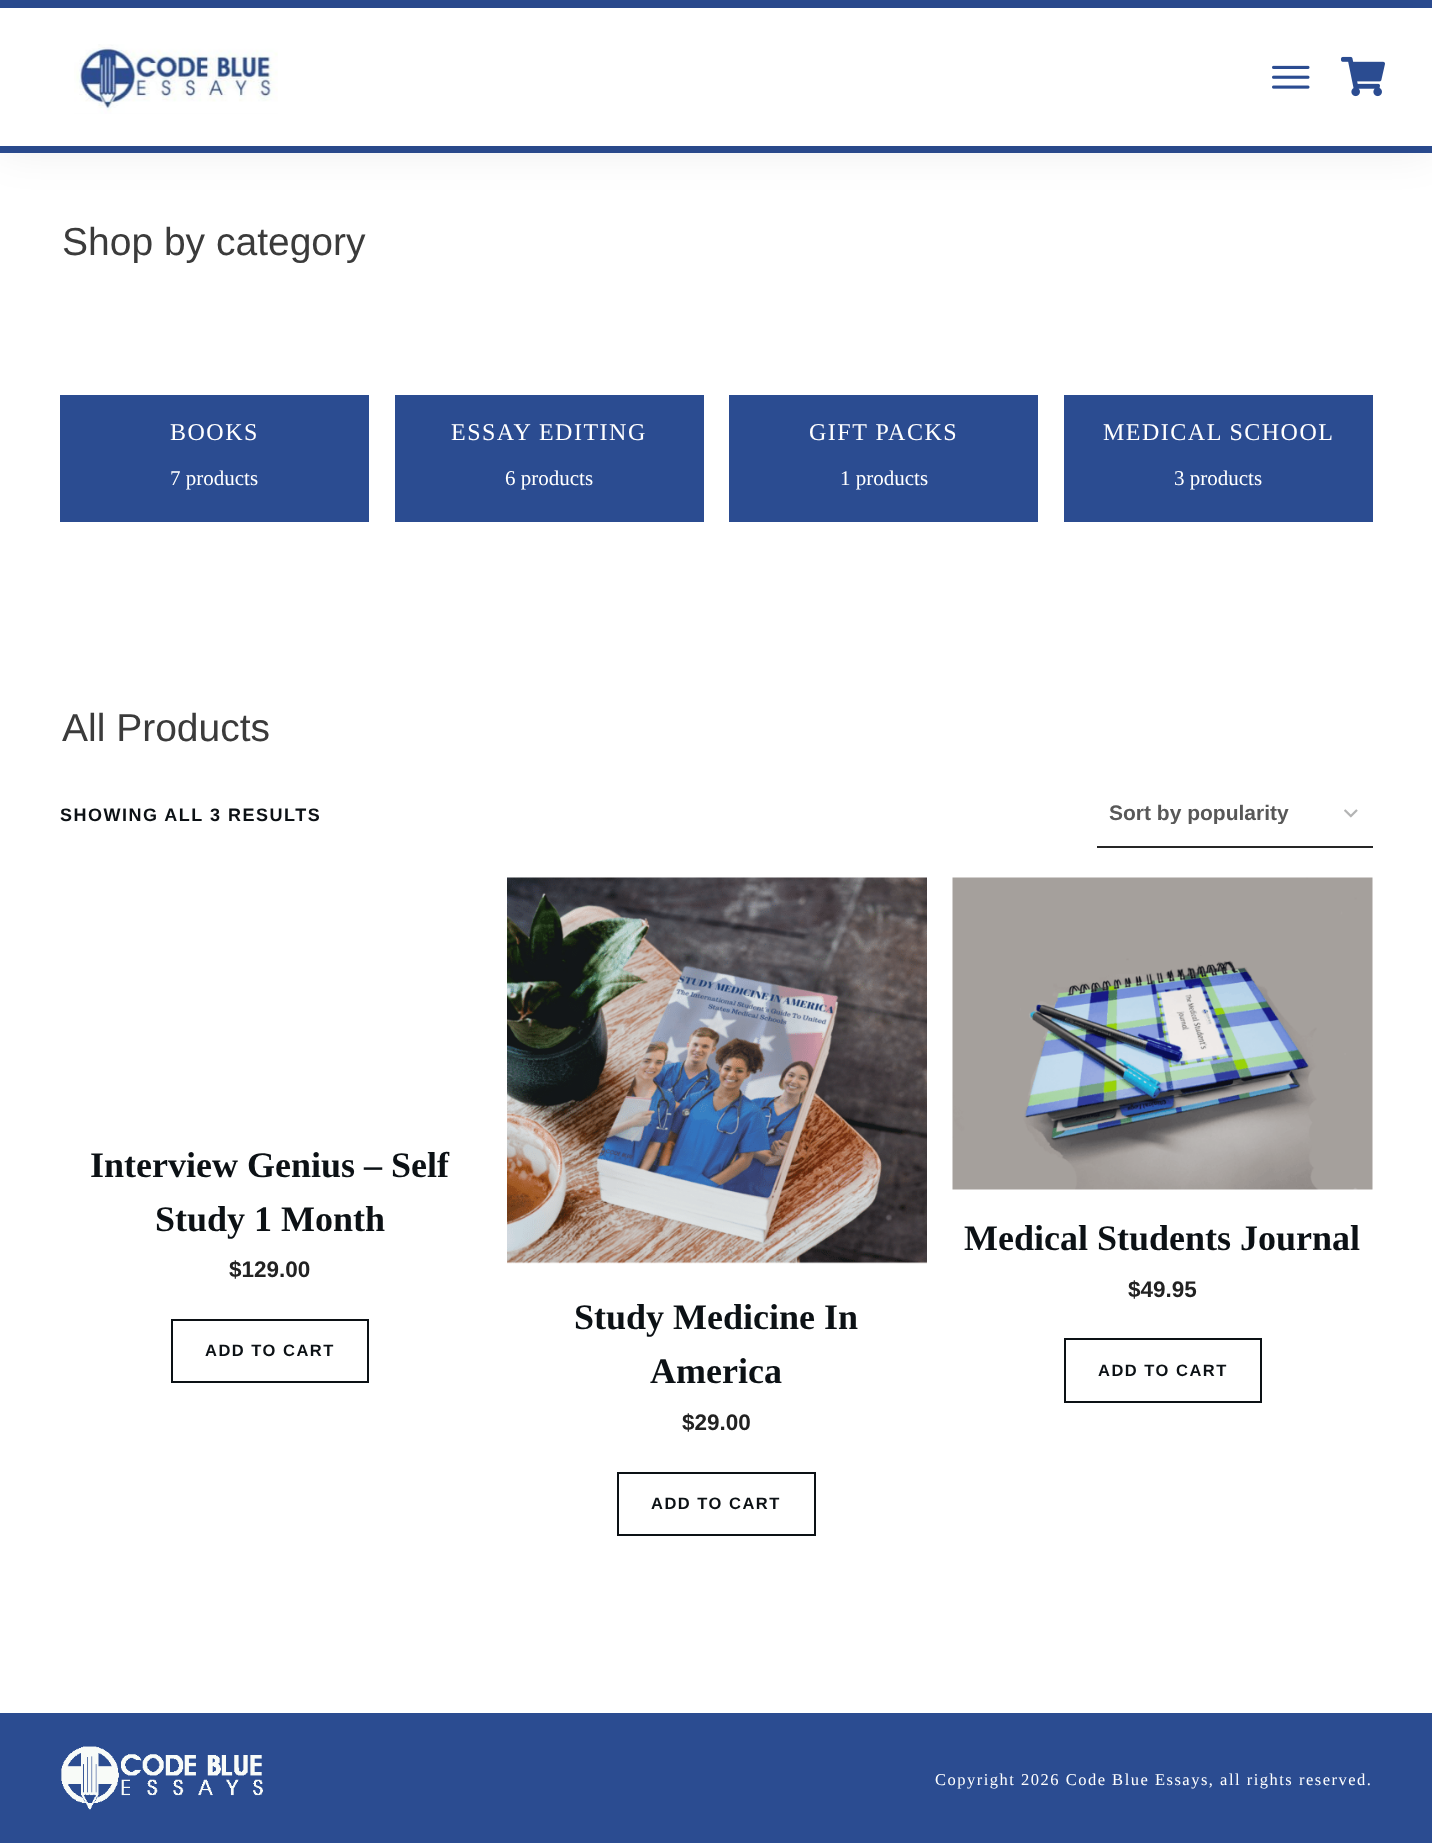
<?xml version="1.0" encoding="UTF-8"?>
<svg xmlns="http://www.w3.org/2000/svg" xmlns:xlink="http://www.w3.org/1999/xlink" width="1432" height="1843">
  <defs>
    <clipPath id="clip1"><rect x="1109" y="803" width="252" height="21" /></clipPath>
  </defs>
  <rect width="100%" height="100%" fill="#ffffff" />
  <rect width="1432" height="8" fill="#2b4c91" />
  <rect y="146" width="1432" height="7" fill="#2b4c91" />
  <rect y="11" width="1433" height="138" fill="#000000" fill-opacity="0.08" filter="blur(22.5px)" />
  <rect y="8" width="1432" height="138" fill="#ffffff" />
  <image x="74" y="44" width="204" height="70" xlink:href="image1.png" />
  <image x="1272" y="65" width="38" height="24" xlink:href="image2.png" />
  <image x="1341" y="56" width="44" height="41" xlink:href="image3.png" />
  <rect x="60" y="395" width="309" height="127" fill="#2b4c91" />
  <rect x="395" y="395" width="309" height="127" fill="#2b4c91" />
  <rect x="729" y="395" width="309" height="127" fill="#2b4c91" />
  <rect x="1064" y="395" width="309" height="127" fill="#2b4c91" />
  <image x="1344" y="809" width="14" height="9" xlink:href="image4.png" />
  <rect x="1097" y="846" width="276" height="2" fill="#262626" />
  <rect x="172" y="1320" width="196" height="62" fill="none" stroke="#0c1115" stroke-width="2" />
  <image x="507" y="877" width="420" height="387" xlink:href="image5.png" />
  <rect x="618" y="1473" width="197" height="62" fill="none" stroke="#0c1115" stroke-width="2" />
  <image x="952" y="877" width="421" height="313" xlink:href="image6.png" />
  <rect x="1065" y="1339" width="196" height="63" fill="none" stroke="#0c1115" stroke-width="2" />
  <rect y="1713" width="1432" height="130" fill="#2b4c91" />
  <image x="61" y="1746" width="202" height="64" xlink:href="image7.png" />
  <text x="62" y="255" style="font-family: Liberation Sans; font-size: 39px; fill: #3b3b3b">Shop by category</text>
  <text x="170" y="440" style="font-family: Liberation Serif; font-size: 24px; letter-spacing: 1.5px; fill: #ffffff">BOOKS</text>
  <text x="170" y="485" style="font-family: Liberation Serif; font-size: 21px; fill: #ffffff">7 products</text>
  <text x="451" y="440" style="font-family: Liberation Serif; font-size: 24px; letter-spacing: 1.5px; fill: #ffffff">ESSAY EDITING</text>
  <text x="505" y="485" style="font-family: Liberation Serif; font-size: 21px; fill: #ffffff">6 products</text>
  <text x="809" y="440" style="font-family: Liberation Serif; font-size: 24px; letter-spacing: 1.5px; fill: #ffffff">GIFT PACKS</text>
  <text x="840" y="485" style="font-family: Liberation Serif; font-size: 21px; fill: #ffffff">1 products</text>
  <text x="1103" y="440" style="font-family: Liberation Serif; font-size: 24px; letter-spacing: 1.5px; fill: #ffffff">MEDICAL SCHOOL</text>
  <text x="1174" y="485" style="font-family: Liberation Serif; font-size: 21px; fill: #ffffff">3 products</text>
  <text x="62" y="741" style="font-family: Liberation Sans; font-size: 39px; fill: #3b3b3b">All Products</text>
  <text x="60" y="821" style="font-family: Liberation Sans; font-size: 18px; font-weight: bold; letter-spacing: 1.5px; fill: #0c1115">SHOWING ALL 3 RESULTS</text>
  <g clip-path="url(#clip1)">
    <text x="1109" y="820" style="font-family: Liberation Sans; font-size: 21px; font-weight: bold; fill: #585858">Sort by popularity</text>
  </g>
  <text x="90" y="1177" style="font-family: Liberation Serif; font-size: 36px; font-weight: bold; fill: #0c1115">Interview Genius – Self</text>
  <text x="155" y="1231" style="font-family: Liberation Serif; font-size: 36px; font-weight: bold; fill: #0c1115">Study 1 Month</text>
  <text x="229" y="1277" style="font-family: Liberation Sans; font-size: 22.5px; font-weight: bold; fill: #222222">$129.00</text>
  <text x="205" y="1356" style="font-family: Liberation Sans; font-size: 16.5px; font-weight: bold; letter-spacing: 1.5px; fill: #0c1115">ADD TO CART</text>
  <text x="574" y="1329" style="font-family: Liberation Serif; font-size: 36px; font-weight: bold; fill: #0c1115">Study Medicine In</text>
  <text x="650" y="1383" style="font-family: Liberation Serif; font-size: 36px; font-weight: bold; fill: #0c1115">America</text>
  <text x="682" y="1430" style="font-family: Liberation Sans; font-size: 22.5px; font-weight: bold; fill: #222222">$29.00</text>
  <text x="651" y="1509" style="font-family: Liberation Sans; font-size: 16.5px; font-weight: bold; letter-spacing: 1.5px; fill: #0c1115">ADD TO CART</text>
  <text x="964" y="1250" style="font-family: Liberation Serif; font-size: 36px; font-weight: bold; fill: #0c1115">Medical Students Journal</text>
  <text x="1128" y="1297" style="font-family: Liberation Sans; font-size: 22.5px; font-weight: bold; fill: #222222">$49.95</text>
  <text x="1098" y="1376" style="font-family: Liberation Sans; font-size: 16.5px; font-weight: bold; letter-spacing: 1.5px; fill: #0c1115">ADD TO CART</text>
  <text x="935" y="1785" style="font-family: Liberation Serif; font-size: 16.5px; letter-spacing: 1.5px; fill: #ffffff">Copyright 2026 Code Blue Essays, all rights reserved.</text>
</svg>
